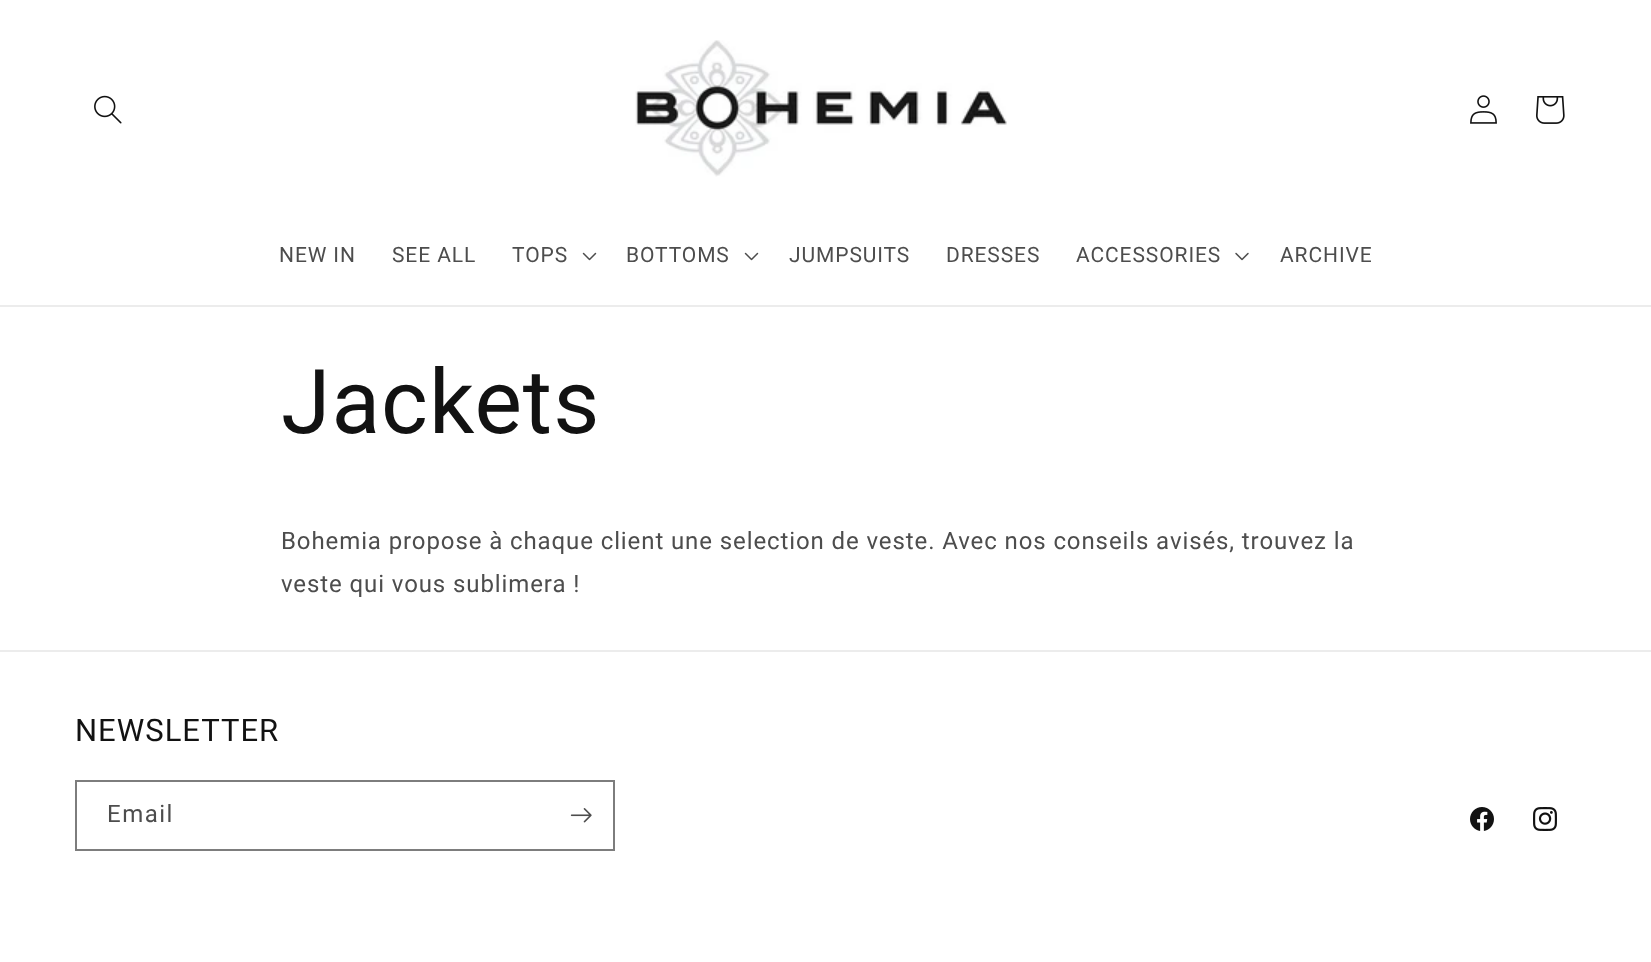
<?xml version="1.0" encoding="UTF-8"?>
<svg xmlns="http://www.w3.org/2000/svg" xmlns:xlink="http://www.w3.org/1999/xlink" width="1651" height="962">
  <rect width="100%" height="100%" fill="#ffffff" />
  <rect y="305" width="1651" height="2" fill="#ececec" />
  <image x="94" y="95" width="28" height="29" xlink:href="image1.png" />
  <image x="635" y="40" width="372" height="137" xlink:href="image2.png" />
  <image x="1470" y="95" width="27" height="29" xlink:href="image3.png" />
  <image x="1536" y="96" width="29" height="28" xlink:href="image4.png" />
  <image x="582" y="252" width="15" height="9" xlink:href="image5.png" />
  <image x="744" y="252" width="15" height="9" xlink:href="image5.png" />
  <image x="1235" y="252" width="14" height="9" xlink:href="image6.png" />
  <rect y="650" width="1651" height="2" fill="#ececec" />
  <rect x="76" y="781" width="538" height="69" fill="none" stroke="#7d7d7d" stroke-width="2" />
  <image x="570" y="808" width="22" height="15" xlink:href="image7.png" />
  <image x="1470" y="807" width="24" height="24" xlink:href="image8.png" />
  <image x="1533" y="807" width="24" height="24" xlink:href="image9.png" />
  <text x="279" y="262" style="font-family: Roboto; font-size: 21px; letter-spacing: 0.9px; fill: #4d4d4d">NEW IN</text>
  <text x="392" y="262" style="font-family: Roboto; font-size: 21px; letter-spacing: 0.9px; fill: #4d4d4d">SEE ALL</text>
  <text x="512" y="262" style="font-family: Roboto; font-size: 21px; letter-spacing: 0.9px; fill: #4d4d4d">TOPS</text>
  <text x="626" y="262" style="font-family: Roboto; font-size: 21px; letter-spacing: 0.9px; fill: #4d4d4d">BOTTOMS</text>
  <text x="789" y="262" style="font-family: Roboto; font-size: 21px; letter-spacing: 0.9px; fill: #4d4d4d">JUMPSUITS</text>
  <text x="946" y="262" style="font-family: Roboto; font-size: 21px; letter-spacing: 0.9px; fill: #4d4d4d">DRESSES</text>
  <text x="1076" y="262" style="font-family: Roboto; font-size: 21px; letter-spacing: 0.9px; fill: #4d4d4d">ACCESSORIES</text>
  <text x="1280" y="262" style="font-family: Roboto; font-size: 21px; letter-spacing: 0.9px; fill: #4d4d4d">ARCHIVE</text>
  <text x="281" y="433" style="font-family: Roboto; font-size: 89.5px; letter-spacing: 1px; fill: #121212">Jackets</text>
  <text x="281" y="549" style="font-family: Roboto; font-size: 24px; letter-spacing: 0.9px; fill: #4d4d4d">Bohemia propose à chaque client une selection de veste. Avec nos conseils avisés, trouvez la</text>
  <text x="281" y="592" style="font-family: Roboto; font-size: 24px; letter-spacing: 0.9px; fill: #4d4d4d">veste qui vous sublimera !</text>
  <text x="75" y="741" style="font-family: Roboto; font-size: 31px; letter-spacing: 1px; fill: #121212">NEWSLETTER</text>
  <text x="107" y="822" style="font-family: Roboto; font-size: 24px; letter-spacing: 1.5px; fill: #4d4d4d">Email</text>
</svg>
